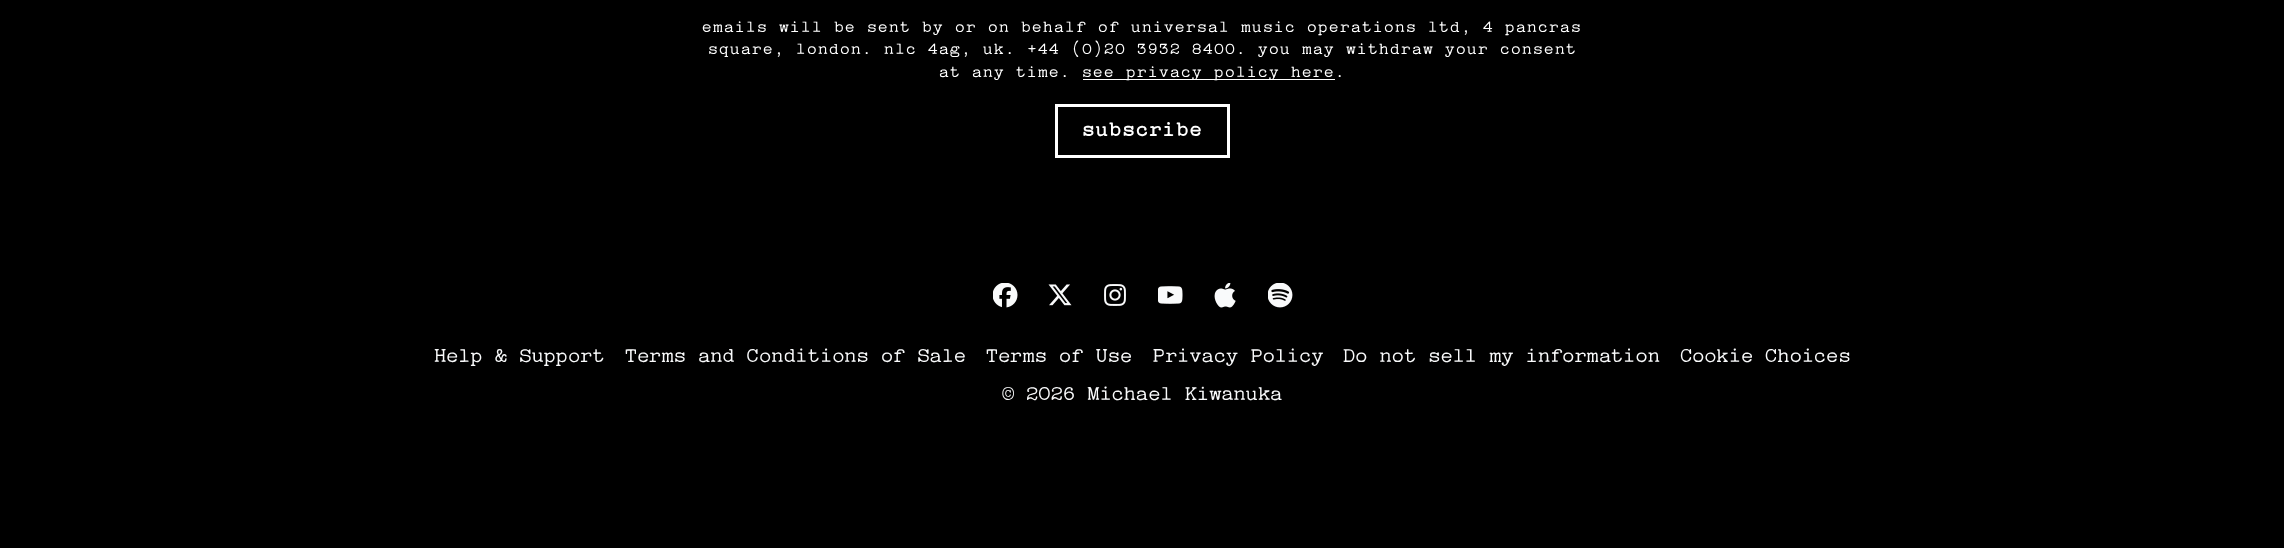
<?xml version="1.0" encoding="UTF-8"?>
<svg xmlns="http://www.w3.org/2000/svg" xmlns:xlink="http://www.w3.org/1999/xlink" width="2284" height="548">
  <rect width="100%" height="100%" fill="#000000" />
  <rect x="1083" y="79" width="252" height="1" fill="#ffffff" />
  <rect x="1056.5" y="105.5" width="172" height="51" fill="none" stroke="#ffffff" stroke-width="3" />
  <image x="993" y="283" width="25" height="25" xlink:href="image1.png" />
  <image x="1048" y="284" width="24" height="22" xlink:href="image2.png" />
  <image x="1104" y="284" width="22" height="22" xlink:href="image3.png" />
  <image x="1158" y="286" width="25" height="18" xlink:href="image4.png" />
  <image x="1214" y="283" width="22" height="25" xlink:href="image5.png" />
  <image x="1268" y="283" width="25" height="25" xlink:href="image6.png" />
  <text x="702" y="32" style="font-family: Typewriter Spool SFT; font-size: 15px; letter-spacing: 1.25px; fill: #ffffff">emails will be sent by or on behalf of universal music operations ltd, 4 pancras</text>
  <text x="708" y="54" style="font-family: Typewriter Spool SFT; font-size: 15px; letter-spacing: 1.25px; fill: #ffffff">square, london. n1c 4ag, uk. +44 (0)20 3932 8400. you may withdraw your consent</text>
  <text x="939" y="77" style="font-family: Typewriter Spool SFT; font-size: 15px; letter-spacing: 1.25px; fill: #ffffff">at any time.</text>
  <text x="1082" y="77" style="font-family: Typewriter Spool SFT; font-size: 15px; letter-spacing: 1.25px; fill: #ffffff">see privacy policy here.</text>
  <text x="1082" y="136" style="font-family: Typewriter Spool SFT; font-size: 18.75px; font-weight: bold; letter-spacing: 1.25px; fill: #ffffff">subscribe</text>
  <text x="434" y="362" style="font-family: Typewriter Spool SFT; font-size: 18.75px; fill: #f9fafb">Help &amp; Support</text>
  <text x="625" y="362" style="font-family: Typewriter Spool SFT; font-size: 18.75px; fill: #f9fafb">Terms and Conditions of Sale</text>
  <text x="986" y="362" style="font-family: Typewriter Spool SFT; font-size: 18.75px; fill: #f9fafb">Terms of Use</text>
  <text x="1153" y="362" style="font-family: Typewriter Spool SFT; font-size: 18.75px; fill: #f9fafb">Privacy Policy</text>
  <text x="1343" y="362" style="font-family: Typewriter Spool SFT; font-size: 18.75px; fill: #f9fafb">Do not sell my information</text>
  <text x="1680" y="362" style="font-family: Typewriter Spool SFT; font-size: 18.75px; fill: #f9fafb">Cookie Choices</text>
  <text x="1002" y="400" style="font-family: Typewriter Spool SFT; font-size: 18.75px; fill: #f9fafb">© 2026 Michael Kiwanuka</text>
</svg>
